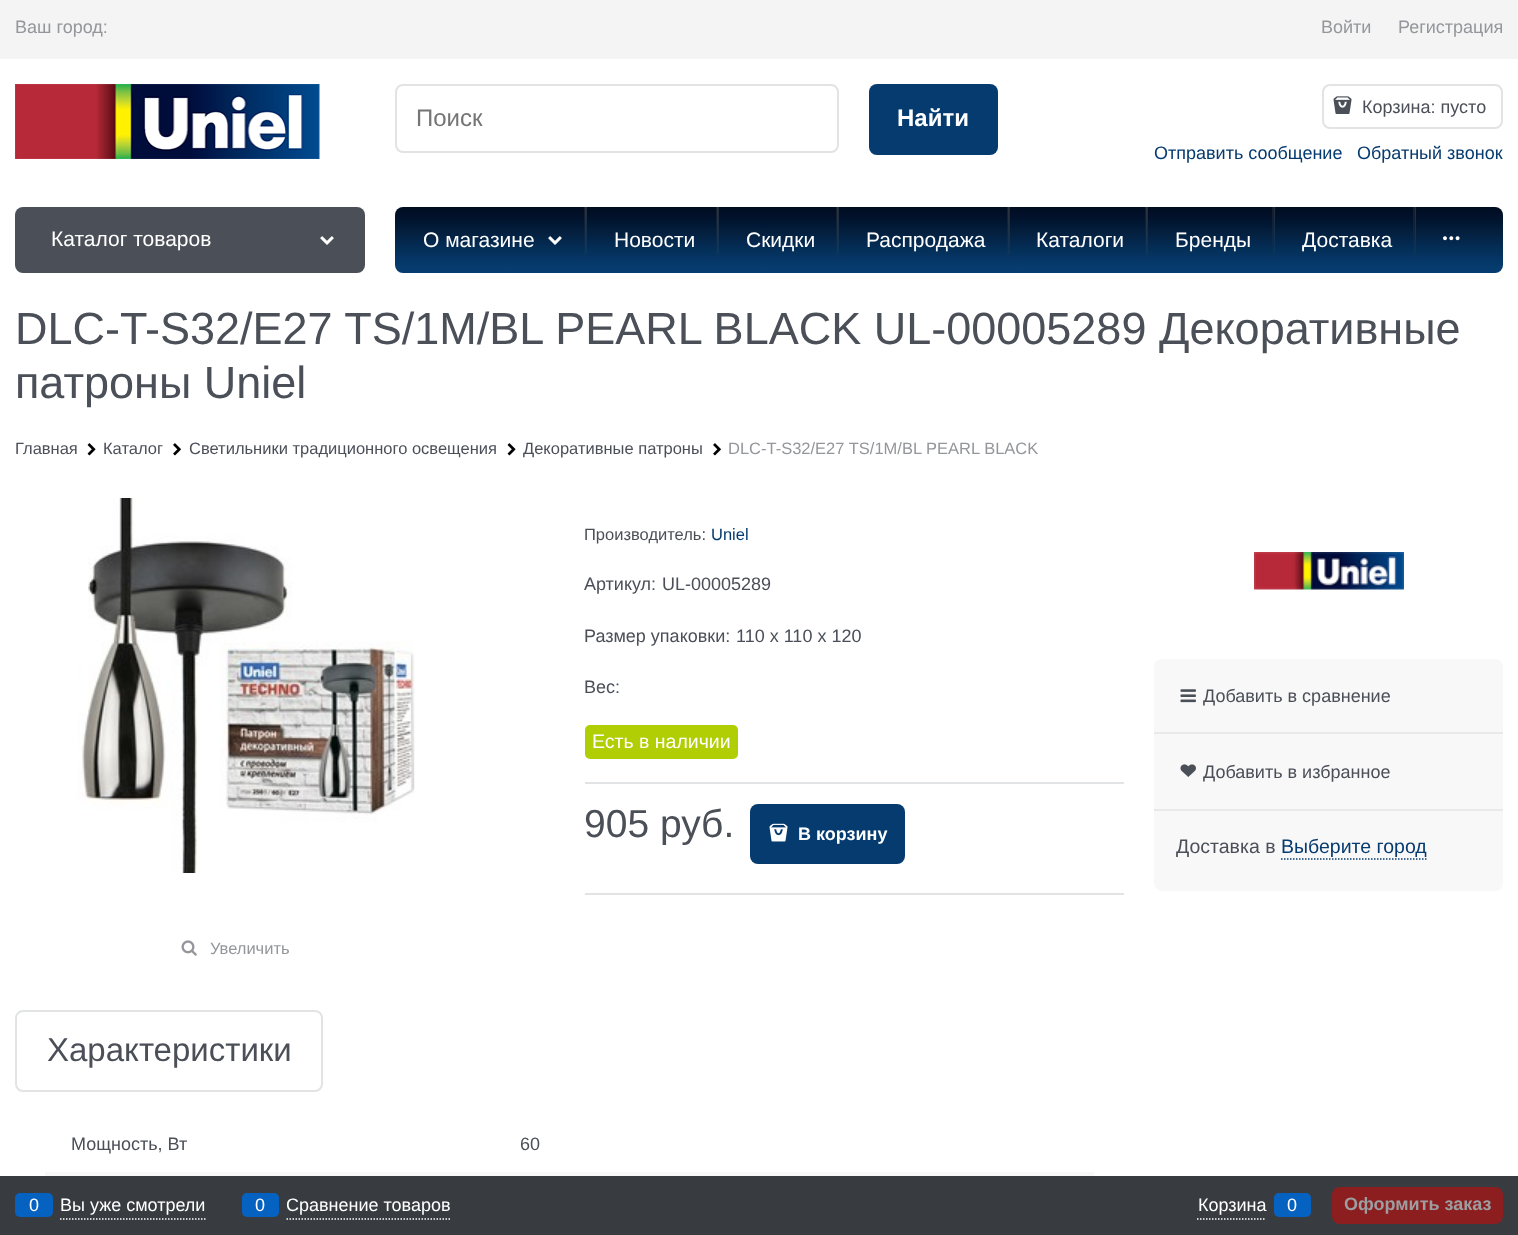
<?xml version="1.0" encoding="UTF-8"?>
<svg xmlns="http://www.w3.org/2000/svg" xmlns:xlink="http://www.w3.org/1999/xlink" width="1518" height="1235">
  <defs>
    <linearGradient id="g1" gradientUnits="userSpaceOnUse" x1="949" y1="207" x2="949" y2="273"><stop offset="0" stop-color="#000d20" /><stop offset="0.18" stop-color="#02132d" /><stop offset="0.26" stop-color="#001834" /><stop offset="0.38" stop-color="#041f3d" /><stop offset="0.59" stop-color="#042b54" /><stop offset="0.64" stop-color="#032f56" /><stop offset="0.77" stop-color="#063465" /><stop offset="0.82" stop-color="#043868" /><stop offset="0.95" stop-color="#073c70" /><stop offset="1" stop-color="#063b6f" /></linearGradient>
    <linearGradient id="g2" gradientUnits="userSpaceOnUse" x1="586" y1="207" x2="586" y2="273"><stop offset="0" stop-color="#ffffff" stop-opacity="0.14" /><stop offset="0.72" stop-color="#ffffff" stop-opacity="0.02" /><stop offset="1" stop-color="#ffffff" stop-opacity="0" /></linearGradient>
    <linearGradient id="g3" gradientUnits="userSpaceOnUse" x1="584" y1="207" x2="584" y2="273"><stop offset="0" stop-color="#393939" stop-opacity="0.39" /><stop offset="0.17" stop-color="#393939" stop-opacity="0.33" /><stop offset="0.61" stop-color="#393939" stop-opacity="0.12" /><stop offset="0.96" stop-color="#393939" stop-opacity="0.01" /><stop offset="0.98" stop-color="#ffffff" stop-opacity="0.01" /><stop offset="1" stop-color="#ffffff" stop-opacity="0" /></linearGradient>
    <linearGradient id="g4" gradientUnits="userSpaceOnUse" x1="718" y1="207" x2="718" y2="273"><stop offset="0" stop-color="#ffffff" stop-opacity="0.14" /><stop offset="0.72" stop-color="#ffffff" stop-opacity="0.02" /><stop offset="1" stop-color="#ffffff" stop-opacity="0" /></linearGradient>
    <linearGradient id="g5" gradientUnits="userSpaceOnUse" x1="716" y1="207" x2="716" y2="273"><stop offset="0" stop-color="#393939" stop-opacity="0.39" /><stop offset="0.17" stop-color="#393939" stop-opacity="0.33" /><stop offset="0.61" stop-color="#393939" stop-opacity="0.12" /><stop offset="0.96" stop-color="#393939" stop-opacity="0.01" /><stop offset="0.98" stop-color="#ffffff" stop-opacity="0.01" /><stop offset="1" stop-color="#ffffff" stop-opacity="0" /></linearGradient>
    <linearGradient id="g6" gradientUnits="userSpaceOnUse" x1="838" y1="207" x2="838" y2="273"><stop offset="0" stop-color="#ffffff" stop-opacity="0.14" /><stop offset="0.72" stop-color="#ffffff" stop-opacity="0.02" /><stop offset="1" stop-color="#ffffff" stop-opacity="0" /></linearGradient>
    <linearGradient id="g7" gradientUnits="userSpaceOnUse" x1="836" y1="207" x2="836" y2="273"><stop offset="0" stop-color="#393939" stop-opacity="0.39" /><stop offset="0.17" stop-color="#393939" stop-opacity="0.33" /><stop offset="0.61" stop-color="#393939" stop-opacity="0.12" /><stop offset="0.96" stop-color="#393939" stop-opacity="0.01" /><stop offset="0.98" stop-color="#ffffff" stop-opacity="0.01" /><stop offset="1" stop-color="#ffffff" stop-opacity="0" /></linearGradient>
    <linearGradient id="g8" gradientUnits="userSpaceOnUse" x1="1009" y1="207" x2="1009" y2="273"><stop offset="0" stop-color="#ffffff" stop-opacity="0.14" /><stop offset="0.72" stop-color="#ffffff" stop-opacity="0.02" /><stop offset="1" stop-color="#ffffff" stop-opacity="0" /></linearGradient>
    <linearGradient id="g9" gradientUnits="userSpaceOnUse" x1="1007" y1="207" x2="1007" y2="273"><stop offset="0" stop-color="#393939" stop-opacity="0.39" /><stop offset="0.17" stop-color="#393939" stop-opacity="0.33" /><stop offset="0.61" stop-color="#393939" stop-opacity="0.12" /><stop offset="0.96" stop-color="#393939" stop-opacity="0.01" /><stop offset="0.98" stop-color="#ffffff" stop-opacity="0.01" /><stop offset="1" stop-color="#ffffff" stop-opacity="0" /></linearGradient>
    <linearGradient id="g10" gradientUnits="userSpaceOnUse" x1="1147" y1="207" x2="1147" y2="273"><stop offset="0" stop-color="#ffffff" stop-opacity="0.14" /><stop offset="0.72" stop-color="#ffffff" stop-opacity="0.02" /><stop offset="1" stop-color="#ffffff" stop-opacity="0" /></linearGradient>
    <linearGradient id="g11" gradientUnits="userSpaceOnUse" x1="1145" y1="207" x2="1145" y2="273"><stop offset="0" stop-color="#393939" stop-opacity="0.39" /><stop offset="0.17" stop-color="#393939" stop-opacity="0.33" /><stop offset="0.61" stop-color="#393939" stop-opacity="0.12" /><stop offset="0.96" stop-color="#393939" stop-opacity="0.01" /><stop offset="0.98" stop-color="#ffffff" stop-opacity="0.01" /><stop offset="1" stop-color="#ffffff" stop-opacity="0" /></linearGradient>
    <linearGradient id="g12" gradientUnits="userSpaceOnUse" x1="1274" y1="207" x2="1274" y2="273"><stop offset="0" stop-color="#ffffff" stop-opacity="0.14" /><stop offset="0.72" stop-color="#ffffff" stop-opacity="0.02" /><stop offset="1" stop-color="#ffffff" stop-opacity="0" /></linearGradient>
    <linearGradient id="g13" gradientUnits="userSpaceOnUse" x1="1273" y1="207" x2="1273" y2="273"><stop offset="0" stop-color="#393939" stop-opacity="0.39" /><stop offset="0.17" stop-color="#393939" stop-opacity="0.33" /><stop offset="0.61" stop-color="#393939" stop-opacity="0.12" /><stop offset="0.96" stop-color="#393939" stop-opacity="0.01" /><stop offset="0.98" stop-color="#ffffff" stop-opacity="0.01" /><stop offset="1" stop-color="#ffffff" stop-opacity="0" /></linearGradient>
    <linearGradient id="g14" gradientUnits="userSpaceOnUse" x1="1415" y1="207" x2="1415" y2="273"><stop offset="0" stop-color="#ffffff" stop-opacity="0.14" /><stop offset="0.72" stop-color="#ffffff" stop-opacity="0.02" /><stop offset="1" stop-color="#ffffff" stop-opacity="0" /></linearGradient>
    <linearGradient id="g15" gradientUnits="userSpaceOnUse" x1="1414" y1="207" x2="1414" y2="273"><stop offset="0" stop-color="#393939" stop-opacity="0.39" /><stop offset="0.17" stop-color="#393939" stop-opacity="0.33" /><stop offset="0.61" stop-color="#393939" stop-opacity="0.12" /><stop offset="0.96" stop-color="#393939" stop-opacity="0.01" /><stop offset="0.98" stop-color="#ffffff" stop-opacity="0.01" /><stop offset="1" stop-color="#ffffff" stop-opacity="0" /></linearGradient>
  </defs>
  <rect width="100%" height="100%" fill="#ffffff" />
  <rect width="1518" height="59" fill="#f4f4f4" />
  <image x="15" y="84" width="305" height="75" xlink:href="image1.png" />
  <rect x="396" y="85" width="442" height="67" rx="7" fill="none" stroke="#e2e3e4" stroke-width="2" />
  <rect x="869" y="84" width="129" height="71" rx="8" fill="#063b6f" />
  <rect x="1323" y="85" width="179" height="43" rx="7" fill="none" stroke="#e2e3e4" stroke-width="2" />
  <image x="1333" y="96" width="19" height="18" xlink:href="image2.png" />
  <rect x="15" y="207" width="350" height="66" rx="8" fill="#4b4f58" />
  <image x="320" y="236" width="14" height="9" xlink:href="image3.png" />
  <rect x="395" y="207" width="1108" height="66" rx="8" fill="url(#g1)" />
  <image x="548" y="236" width="14" height="9" xlink:href="image4.png" />
  <rect x="585" y="207" width="2" height="47" fill="url(#g2)" />
  <rect x="584" y="207" width="2" height="56" fill="url(#g3)" />
  <rect x="717" y="207" width="2" height="47" fill="url(#g4)" />
  <rect x="716" y="207" width="2" height="56" fill="url(#g5)" />
  <rect x="837" y="207" width="2" height="47" fill="url(#g6)" />
  <rect x="836" y="207" width="2" height="56" fill="url(#g7)" />
  <rect x="1008" y="207" width="2" height="47" fill="url(#g8)" />
  <rect x="1007" y="207" width="2" height="56" fill="url(#g9)" />
  <rect x="1146" y="207" width="2" height="47" fill="url(#g10)" />
  <rect x="1145" y="207" width="2" height="56" fill="url(#g11)" />
  <rect x="1274" y="207" width="1" height="47" fill="url(#g12)" />
  <rect x="1272" y="207" width="2" height="56" fill="url(#g13)" />
  <rect x="1415" y="207" width="1" height="47" fill="url(#g14)" />
  <rect x="1413" y="207" width="2" height="56" fill="url(#g15)" />
  <image x="1443" y="236" width="17" height="5" xlink:href="image5.png" />
  <image x="87" y="443" width="9" height="13" xlink:href="image6.png" />
  <image x="173" y="443" width="8" height="13" xlink:href="image7.png" />
  <image x="507" y="443" width="9" height="13" xlink:href="image6.png" />
  <image x="713" y="443" width="8" height="13" xlink:href="image7.png" />
  <rect x="585" y="725" width="153" height="34" rx="5" fill="#b1cd03" />
  <rect x="585" y="782" width="539" height="2" fill="#e2e3e4" />
  <rect x="585" y="893" width="539" height="2" fill="#e2e3e4" />
  <rect x="750" y="804" width="155" height="60" rx="8" fill="#063b6f" />
  <image x="769" y="823" width="19" height="19" xlink:href="image8.png" />
  <image x="77" y="498" width="338" height="375" xlink:href="image9.png" />
  <image x="181" y="940" width="16" height="16" xlink:href="image10.png" />
  <rect x="16" y="1011" width="306" height="80" rx="7" fill="none" stroke="#e2e3e4" stroke-width="2" />
  <rect x="45" y="1172" width="1049" height="4" fill="#f8f8f8" />
  <image x="1254" y="552" width="150" height="38" xlink:href="image11.png" />
  <rect x="1154" y="659" width="349" height="232" rx="8" fill="#f8f8f8" />
  <rect x="1154" y="732" width="349" height="2" fill="#e9e9e9" />
  <image x="1180" y="689" width="16" height="14" xlink:href="image12.png" />
  <rect x="1154" y="809" width="349" height="2" fill="#e9e9e9" />
  <image x="1180" y="764" width="16" height="13" xlink:href="image13.png" />
  <path d="M 1281 859 h 145.5" fill="none" stroke="#063b6f" stroke-width="1.5" stroke-dasharray="1.5 1.5" />
  <rect y="1176" width="1518" height="59" fill="#383c40" />
  <path d="M 60 1219 h 145.5" fill="none" stroke="#ffffff" stroke-width="1.5" stroke-dasharray="1.5 1.5" />
  <rect x="15" y="1193" width="38" height="24" rx="5" fill="#0662c1" />
  <path d="M 286.5 1219 h 163.5" fill="none" stroke="#ffffff" stroke-width="1.5" stroke-dasharray="1.5 1.5" />
  <rect x="242" y="1193" width="37" height="24" rx="5" fill="#0662c1" />
  <path d="M 1197 1219 h 69" fill="none" stroke="#ffffff" stroke-width="1.5" stroke-dasharray="1.5 1.5" />
  <rect x="1274" y="1193" width="37" height="24" rx="5" fill="#0662c1" />
  <rect x="1332" y="1187" width="171" height="37" rx="8" fill="#8d1e20" />
  <text x="15" y="33" style="font-family: Liberation Sans; font-size: 18px; fill: #94969b">Ваш город:</text>
  <text x="1321" y="33" style="font-family: Liberation Sans; font-size: 18px; fill: #94969b">Войти</text>
  <text x="1398" y="33" style="font-family: Liberation Sans; font-size: 18px; fill: #94969b">Регистрация</text>
  <text x="416" y="126" style="font-family: Liberation Sans; font-size: 24px; fill: #757575">Поиск</text>
  <text x="897" y="126" style="font-family: Liberation Sans; font-size: 24px; font-weight: bold; fill: #ffffff">Найти</text>
  <text x="1362" y="113" style="font-family: Liberation Sans; font-size: 18px; fill: #4b4f58">Корзина: пусто</text>
  <text x="1154" y="159" style="font-family: Liberation Sans; font-size: 18px; fill: #063b6f">Отправить сообщение</text>
  <text x="1357" y="159" style="font-family: Liberation Sans; font-size: 18px; fill: #063b6f">Обратный звонок</text>
  <text x="51" y="246" style="font-family: Liberation Sans; font-size: 21px; fill: #ffffff">Каталог товаров</text>
  <text x="423" y="247" style="font-family: Liberation Sans; font-size: 21px; fill: #ffffff">О магазине</text>
  <text x="614" y="247" style="font-family: Liberation Sans; font-size: 21px; fill: #ffffff">Новости</text>
  <text x="746" y="247" style="font-family: Liberation Sans; font-size: 21px; fill: #ffffff">Скидки</text>
  <text x="866" y="247" style="font-family: Liberation Sans; font-size: 21px; fill: #ffffff">Распродажа</text>
  <text x="1036" y="247" style="font-family: Liberation Sans; font-size: 21px; fill: #ffffff">Каталоги</text>
  <text x="1175" y="247" style="font-family: Liberation Sans; font-size: 21px; fill: #ffffff">Бренды</text>
  <text x="1302" y="247" style="font-family: Liberation Sans; font-size: 21px; fill: #ffffff">Доставка</text>
  <text x="15" y="344" style="font-family: Liberation Sans; font-size: 45px; fill: #4b4f58">DLC-T-S32/E27 TS/1M/BL PEARL BLACK UL-00005289 Декоративные</text>
  <text x="15" y="398" style="font-family: Liberation Sans; font-size: 45px; fill: #4b4f58">патроны Uniel</text>
  <text x="15" y="454" style="font-family: Liberation Sans; font-size: 16.5px; fill: #4b4f58">Главная</text>
  <text x="103" y="454" style="font-family: Liberation Sans; font-size: 16.5px; fill: #4b4f58">Каталог</text>
  <text x="189" y="454" style="font-family: Liberation Sans; font-size: 16.5px; fill: #4b4f58">Светильники традиционного освещения</text>
  <text x="523" y="454" style="font-family: Liberation Sans; font-size: 16.5px; fill: #4b4f58">Декоративные патроны</text>
  <text x="728" y="454" style="font-family: Liberation Sans; font-size: 16.5px; fill: #94969b">DLC-T-S32/E27 TS/1M/BL PEARL BLACK</text>
  <text x="584" y="540" style="font-family: Liberation Sans; font-size: 16.5px; fill: #4b4f58">Производитель:</text>
  <text x="711" y="540" style="font-family: Liberation Sans; font-size: 16.5px; fill: #063b6f">Uniel</text>
  <text x="584" y="590" style="font-family: Liberation Sans; font-size: 18px; fill: #4b4f58">Артикул:</text>
  <text x="662" y="590" style="font-family: Liberation Sans; font-size: 18px; fill: #4b4f58">UL-00005289</text>
  <text x="584" y="642" style="font-family: Liberation Sans; font-size: 18px; fill: #4b4f58">Размер упаковки:</text>
  <text x="736" y="642" style="font-family: Liberation Sans; font-size: 18px; fill: #4b4f58">110 x 110 x 120</text>
  <text x="584" y="693" style="font-family: Liberation Sans; font-size: 18px; fill: #4b4f58">Вес:</text>
  <text x="592" y="748" style="font-family: Liberation Sans; font-size: 19.5px; fill: #ffffff">Есть в наличии</text>
  <text x="584" y="837" style="font-family: Liberation Sans; font-size: 39px; fill: #4b4f58">905 руб.</text>
  <text x="798" y="840" style="font-family: Liberation Sans; font-size: 18px; font-weight: bold; fill: #ffffff">В корзину</text>
  <text x="210" y="954" style="font-family: Liberation Sans; font-size: 16.5px; fill: #94969b">Увеличить</text>
  <text x="47" y="1061" style="font-family: Liberation Sans; font-size: 33px; fill: #4b4f58">Характеристики</text>
  <text x="71" y="1150" style="font-family: Liberation Sans; font-size: 18px; fill: #4b4f58">Мощность, Вт</text>
  <text x="520" y="1150" style="font-family: Liberation Sans; font-size: 18px; fill: #4b4f58">60</text>
  <text x="1203" y="702" style="font-family: Liberation Sans; font-size: 18px; fill: #4b4f58">Добавить в сравнение</text>
  <text x="1203" y="778" style="font-family: Liberation Sans; font-size: 18px; fill: #4b4f58">Добавить в избранное</text>
  <text x="1176" y="853" style="font-family: Liberation Sans; font-size: 19.5px; fill: #4b4f58">Доставка в</text>
  <text x="1281" y="853" style="font-family: Liberation Sans; font-size: 19.5px; fill: #063b6f">Выберите город</text>
  <text x="29" y="1211" style="font-family: Liberation Sans; font-size: 18px; fill: #ffffff">0</text>
  <text x="60" y="1211" style="font-family: Liberation Sans; font-size: 18px; fill: #ffffff">Вы уже смотрели</text>
  <text x="255" y="1211" style="font-family: Liberation Sans; font-size: 18px; fill: #ffffff">0</text>
  <text x="286" y="1211" style="font-family: Liberation Sans; font-size: 18px; fill: #ffffff">Сравнение товаров</text>
  <text x="1198" y="1211" style="font-family: Liberation Sans; font-size: 18px; fill: #ffffff">Корзина</text>
  <text x="1287" y="1211" style="font-family: Liberation Sans; font-size: 18px; fill: #ffffff">0</text>
  <text x="1344" y="1210" style="font-family: Liberation Sans; font-size: 18px; font-weight: bold; fill: #9c9ea0">Оформить заказ</text>
</svg>
